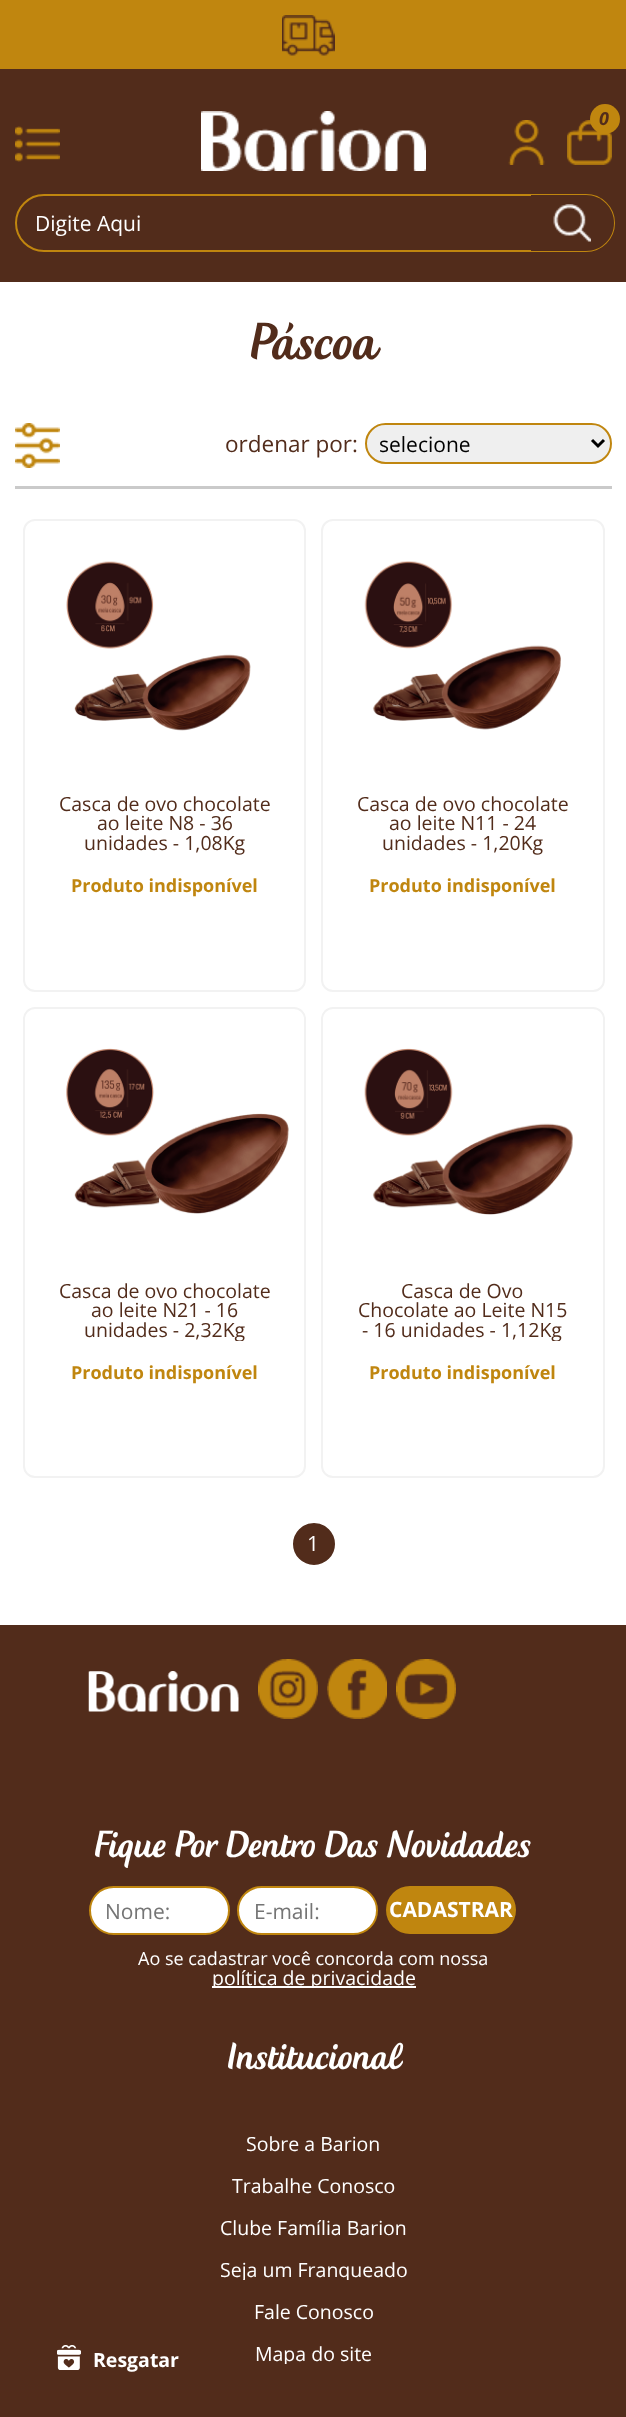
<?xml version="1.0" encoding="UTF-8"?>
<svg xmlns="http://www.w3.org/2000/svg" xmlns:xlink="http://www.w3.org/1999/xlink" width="626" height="2417">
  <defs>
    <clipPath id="clip1"><rect x="380" y="428" width="199" height="31" /></clipPath>
    <clipPath id="clip2"><rect x="57" y="1281" width="215" height="60" /></clipPath>
    <clipPath id="clip3"><rect x="356" y="1281" width="214" height="60" /></clipPath>
    <clipPath id="clip4"><rect x="89" y="1655" width="450" height="333" /></clipPath>
    <clipPath id="clip5"><rect x="89" y="2261" width="450" height="19" /></clipPath>
    <clipPath id="clip6"><rect x="89" y="2345" width="450" height="19" /></clipPath>
  </defs>
  <rect width="100%" height="100%" fill="#ffffff" />
  <rect width="626" height="69" fill="#c0860f" />
  <image x="282" y="15" width="53" height="41" xlink:href="image1.png" />
  <rect y="69" width="626" height="213" fill="#522c1b" />
  <image x="201" y="111" width="225" height="60" xlink:href="image2.png" />
  <image x="567" y="120" width="45" height="45" xlink:href="image3.png" />
  <circle cx="605" cy="119" r="15" fill="#c0860f" />
  <image x="508" y="120" width="37" height="45" xlink:href="image4.png" />
  <image x="15" y="126" width="45" height="36" xlink:href="image5.png" />
  <rect x="16" y="195" width="598" height="56" rx="28" fill="none" stroke="#c0860f" stroke-width="2" />
  <path d="M 531 195 h 55 c 15.5 0 28 12.5 28 28 c 0 15.5 -12.5 28 -28 28 h -55 z" fill="#522c1b" />
  <image x="553" y="204" width="38" height="38" xlink:href="image6.png" />
  <image x="15" y="423" width="45" height="45" xlink:href="image7.png" />
  <rect x="15" y="486" width="597" height="3" fill="#cacaca" />
  <rect x="366" y="424" width="245" height="39" rx="19.5" fill="#efefef" stroke="#c0860f" stroke-width="2" />
  <path d="M 592 440 l 6 6 l 6 -6" fill="none" stroke="#000000" stroke-width="3" />
  <rect x="24" y="520" width="281" height="471" rx="11" fill="none" stroke="#f2f2f2" stroke-width="2" />
  <image x="66" y="561" width="185" height="170" xlink:href="image8.png" />
  <rect x="322" y="520" width="282" height="471" rx="11" fill="none" stroke="#f2f2f2" stroke-width="2" />
  <image x="364" y="561" width="197" height="169" xlink:href="image9.png" />
  <rect x="24" y="1008" width="281" height="469" rx="11" fill="none" stroke="#f2f2f2" stroke-width="2" />
  <image x="66" y="1048" width="223" height="166" xlink:href="image10.png" />
  <rect x="322" y="1008" width="282" height="469" rx="11" fill="none" stroke="#f2f2f2" stroke-width="2" />
  <image x="364" y="1048" width="209" height="167" xlink:href="image11.png" />
  <circle cx="314" cy="1544" r="20" fill="#522c1b" stroke="#522c1b" stroke-width="2" />
  <rect y="1625" width="626" height="792" fill="#522c1b" />
  <image x="88" y="1671" width="151" height="41" xlink:href="image12.png" />
  <image x="258" y="1659" width="60" height="60" xlink:href="image13.png" />
  <image x="327" y="1659" width="60" height="60" xlink:href="image14.png" />
  <image x="396" y="1659" width="60" height="60" xlink:href="image15.png" />
  <rect x="90" y="1887" width="139" height="47" rx="23.5" fill="#ffffff" stroke="#c0860f" stroke-width="2" />
  <rect x="238" y="1887" width="139" height="47" rx="23.5" fill="#ffffff" stroke="#c0860f" stroke-width="2" />
  <rect x="386" y="1886" width="130" height="48" rx="24" fill="#c0860f" />
  <rect x="212" y="1986" width="204" height="2" fill="#ffffff" />
  <image x="57" y="2345" width="24" height="25" xlink:href="image16.png" />
  <text x="599" y="125" style="font-family: Open Sans; font-size: 18px; font-weight: bold; font-style: italic; fill: #522c1b">0</text>
  <text x="35" y="231" style="font-family: Open Sans; font-size: 21px; fill: #ffffff">Digite Aqui</text>
  <text x="251" y="359" style="font-family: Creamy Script; font-size: 68px; fill: #522c1b">Páscoa</text>
  <text x="225" y="452" style="font-family: Open Sans; font-size: 22.5px; fill: #522c1b">ordenar por:</text>
  <g clip-path="url(#clip1)">
    <text x="379" y="452" style="font-family: Open Sans; font-size: 21px; fill: #000000">selecione</text>
  </g>
  <text x="59" y="811" style="font-family: Open Sans; font-size: 19.5px; fill: #522c1b">Casca de ovo chocolate</text>
  <text x="97" y="830" style="font-family: Open Sans; font-size: 19.5px; fill: #522c1b">ao leite N8 - 36</text>
  <text x="84" y="850" style="font-family: Open Sans; font-size: 19.5px; fill: #522c1b">unidades - 1,08Kg</text>
  <text x="71" y="892" style="font-family: Open Sans; font-size: 18px; font-weight: bold; fill: #c0860f">Produto indisponível</text>
  <text x="357" y="811" style="font-family: Open Sans; font-size: 19.5px; fill: #522c1b">Casca de ovo chocolate</text>
  <text x="389" y="830" style="font-family: Open Sans; font-size: 19.5px; fill: #522c1b">ao leite N11 - 24</text>
  <text x="382" y="850" style="font-family: Open Sans; font-size: 19.5px; fill: #522c1b">unidades - 1,20Kg</text>
  <text x="369" y="892" style="font-family: Open Sans; font-size: 18px; font-weight: bold; fill: #c0860f">Produto indisponível</text>
  <text x="59" y="1298" style="font-family: Open Sans; font-size: 19.5px; fill: #522c1b">Casca de ovo chocolate</text>
  <text x="91" y="1317" style="font-family: Open Sans; font-size: 19.5px; fill: #522c1b">ao leite N21 - 16</text>
  <g clip-path="url(#clip2)">
    <text x="84" y="1337" style="font-family: Open Sans; font-size: 19.5px; fill: #522c1b">unidades - 2,32Kg</text>
  </g>
  <text x="71" y="1379" style="font-family: Open Sans; font-size: 18px; font-weight: bold; fill: #c0860f">Produto indisponível</text>
  <text x="401" y="1298" style="font-family: Open Sans; font-size: 19.5px; fill: #522c1b">Casca de Ovo</text>
  <text x="358" y="1317" style="font-family: Open Sans; font-size: 19.5px; fill: #522c1b">Chocolate ao Leite N15</text>
  <g clip-path="url(#clip3)">
    <text x="362" y="1337" style="font-family: Open Sans; font-size: 19.5px; fill: #522c1b">- 16 unidades - 1,12Kg</text>
  </g>
  <text x="369" y="1379" style="font-family: Open Sans; font-size: 18px; font-weight: bold; fill: #c0860f">Produto indisponível</text>
  <text x="307" y="1551" style="font-family: Open Sans; font-size: 21px; fill: #ffffff">1</text>
  <text x="95" y="1857" style="font-family: Creamy Script; font-size: 49.5px; fill: #ffffff">Fique Por Dentro Das Novidades</text>
  <text x="105" y="1919" style="font-family: Open Sans; font-size: 21px; fill: #757575">Nome:</text>
  <text x="254" y="1919" style="font-family: Open Sans; font-size: 21px; fill: #757575">E-mail:</text>
  <text x="389" y="1917" style="font-family: Open Sans; font-size: 21px; font-weight: bold; fill: #ffffff">CADASTRAR</text>
  <text x="138" y="1965" style="font-family: Open Sans; font-size: 18px; fill: #ffffff">Ao se cadastrar você concorda com nossa</text>
  <g clip-path="url(#clip4)">
    <text x="212" y="1985" style="font-family: Open Sans; font-size: 19.5px; fill: #ffffff">política de privacidade</text>
  </g>
  <text x="228" y="2069" style="font-family: Creamy Script; font-size: 49.5px; fill: #ffffff">Institucional</text>
  <text x="246" y="2151" style="font-family: Open Sans; font-size: 19.5px; fill: #ffffff">Sobre a Barion</text>
  <text x="232" y="2193" style="font-family: Open Sans; font-size: 19.5px; fill: #ffffff">Trabalhe Conosco</text>
  <text x="220" y="2235" style="font-family: Open Sans; font-size: 19.5px; fill: #ffffff">Clube Família Barion</text>
  <g clip-path="url(#clip5)">
    <text x="220" y="2277" style="font-family: Open Sans; font-size: 19.5px; fill: #ffffff">Seja um Franqueado</text>
  </g>
  <text x="254" y="2319" style="font-family: Open Sans; font-size: 19.5px; fill: #ffffff">Fale Conosco</text>
  <g clip-path="url(#clip6)">
    <text x="255" y="2361" style="font-family: Open Sans; font-size: 19.5px; fill: #ffffff">Mapa do site</text>
  </g>
  <text x="93" y="2367" style="font-family: Open Sans; font-size: 19.5px; font-weight: bold; fill: #ffffff">Resgatar</text>
</svg>
